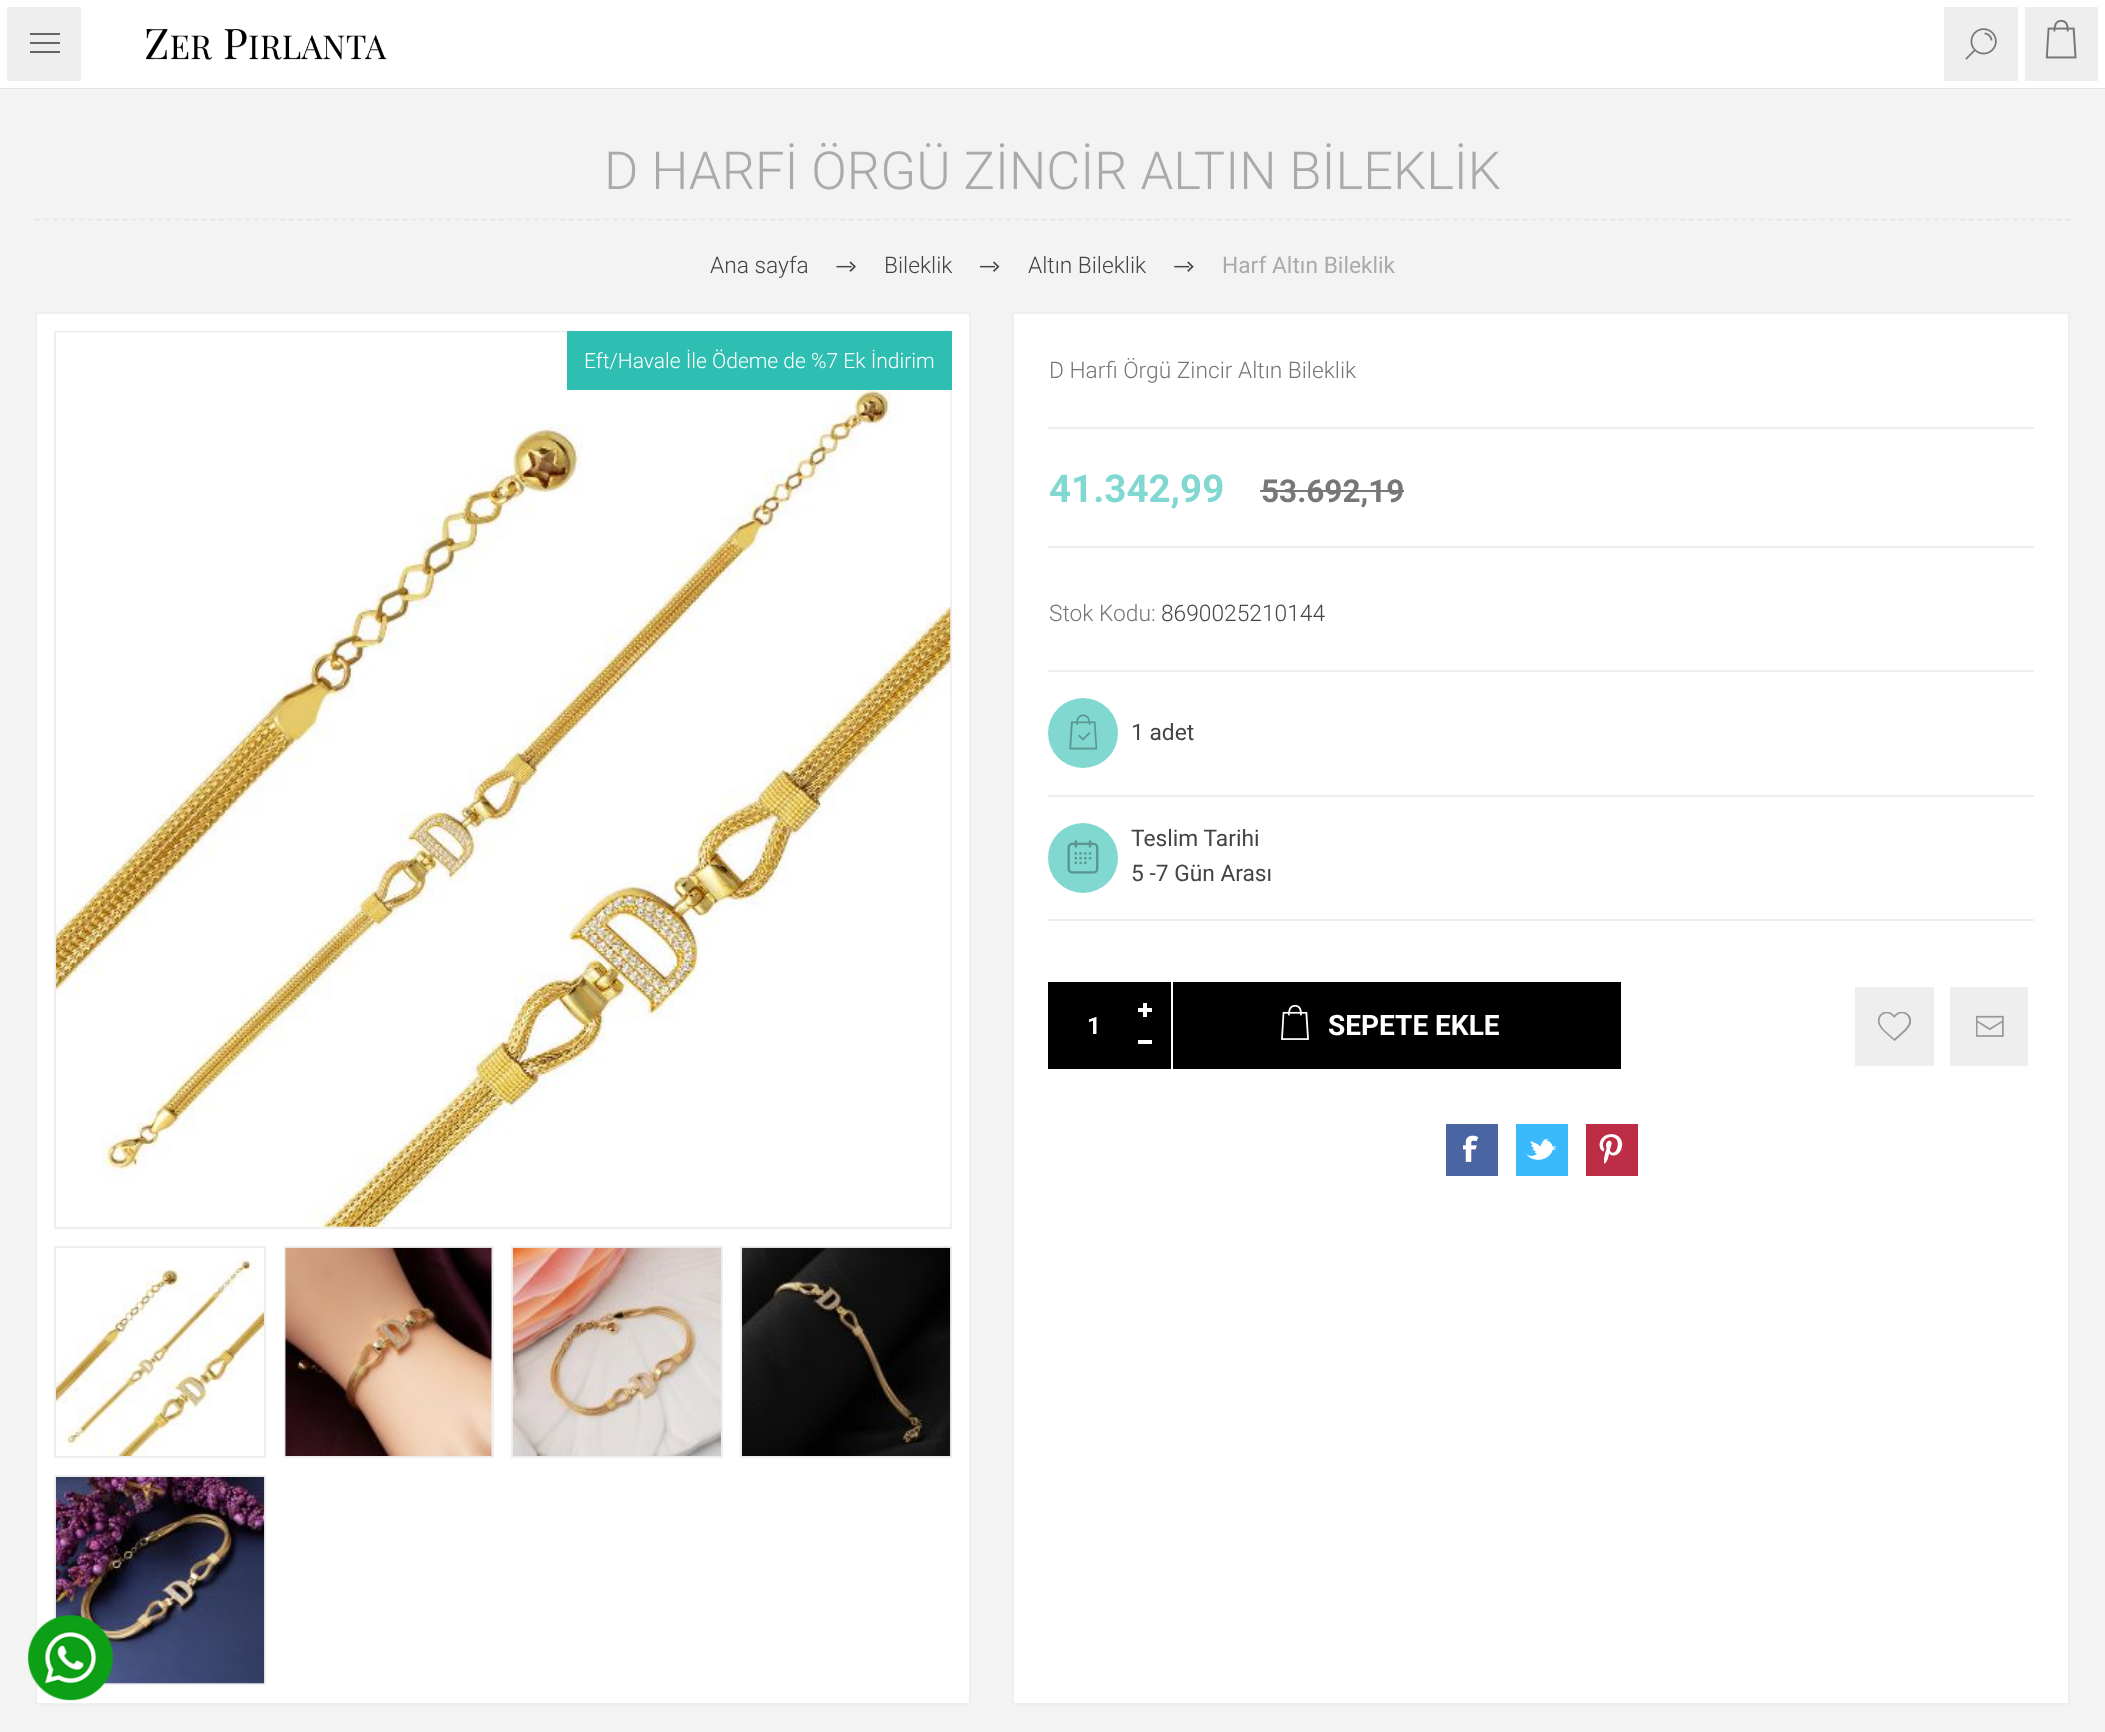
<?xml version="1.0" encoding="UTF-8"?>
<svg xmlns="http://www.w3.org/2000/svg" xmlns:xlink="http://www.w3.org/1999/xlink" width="2105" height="1732">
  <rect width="100%" height="100%" fill="#f3f3f3" />
  <rect y="88" width="2105" height="1" fill="#e3e3e3" />
  <rect x="88" width="1930" height="88" fill="#ffffff" />
  <image x="146" y="29" width="241" height="31" xlink:href="image1.png" />
  <rect x="1944" y="7" width="74" height="74" fill="#eeeeee" />
  <image x="1965" y="28" width="32" height="32" xlink:href="image2.png" />
  <rect x="3.5" y="3.5" width="81" height="81" fill="#eeeeee" stroke="#ffffff" stroke-width="7" />
  <rect x="30" y="33" width="30" height="2" fill="#666666" />
  <rect x="30" y="42" width="30" height="2" fill="#666666" />
  <rect x="30" y="51" width="30" height="2" fill="#666666" />
  <rect x="2021.5" y="3.5" width="80" height="81" fill="#eeeeee" stroke="#ffffff" stroke-width="7" />
  <image x="2045" y="19" width="32" height="40" xlink:href="image3.png" />
  <path d="M 35 219.5 h 2035" fill="none" stroke="#e6e6e6" stroke-width="1.8" stroke-dasharray="5.25 3.5" />
  <image x="836" y="261" width="20" height="11" xlink:href="image4.png" />
  <image x="980" y="261" width="20" height="11" xlink:href="image5.png" />
  <image x="1174" y="261" width="20" height="11" xlink:href="image6.png" />
  <rect x="36" y="313" width="934" height="1391" fill="#ffffff" stroke="#eeeeee" stroke-width="2" />
  <rect x="55" y="332" width="896" height="896" fill="none" stroke="#eeeeee" stroke-width="2" />
  <image x="56" y="332" width="895" height="895" xlink:href="image7.png" />
  <rect x="567" y="331" width="385" height="59" fill="#2ebfb2" />
  <rect x="55" y="1247" width="210" height="210" fill="none" stroke="#eeeeee" stroke-width="2" />
  <image x="56" y="1248" width="209" height="208" xlink:href="image8.png" />
  <rect x="285" y="1247" width="208" height="210" fill="none" stroke="#eeeeee" stroke-width="2" />
  <image x="285" y="1247" width="207" height="209" xlink:href="image9.png" />
  <rect x="512" y="1247" width="210" height="210" fill="none" stroke="#eeeeee" stroke-width="2" />
  <image x="512" y="1247" width="209" height="209" xlink:href="image10.png" />
  <rect x="741" y="1247" width="210" height="210" fill="none" stroke="#eeeeee" stroke-width="2" />
  <image x="742" y="1247" width="209" height="209" xlink:href="image11.png" />
  <rect x="55" y="1476" width="210" height="208" fill="none" stroke="#eeeeee" stroke-width="2" />
  <image x="56" y="1477" width="209" height="207" xlink:href="image12.png" />
  <rect x="1013" y="313" width="1056" height="1391" fill="#ffffff" stroke="#eeeeee" stroke-width="2" />
  <rect x="1048" y="427" width="986" height="2" fill="#eeeeee" />
  <rect x="1048" y="546" width="986" height="2" fill="#eeeeee" />
  <rect x="1260" y="490" width="144" height="2" fill="#777777" />
  <rect x="1048" y="670" width="986" height="2" fill="#eeeeee" />
  <rect x="1048" y="795" width="986" height="2" fill="#eeeeee" />
  <circle cx="1083" cy="733" r="35" fill="#81d8d0" />
  <image x="1069" y="714" width="29" height="36" xlink:href="image13.png" />
  <rect x="1048" y="919" width="986" height="2" fill="#eeeeee" />
  <circle cx="1083" cy="858" r="35" fill="#81d8d0" />
  <image x="1067" y="840" width="32" height="34" xlink:href="image14.png" />
  <rect x="1048" y="982" width="70" height="87" fill="#000000" />
  <rect x="1118" y="982" width="53" height="87" fill="#000000" />
  <rect x="1138" y="1008" width="14" height="4" fill="#ffffff" />
  <rect x="1143" y="1003" width="4" height="14" fill="#ffffff" />
  <rect x="1138" y="1040" width="14" height="4" fill="#ffffff" />
  <rect x="1173" y="982" width="448" height="87" fill="#000000" />
  <image x="1281" y="1004" width="28" height="36" xlink:href="image15.png" />
  <rect x="1855" y="987" width="79" height="79" fill="#eeeeee" />
  <image x="1878" y="1012" width="33" height="29" xlink:href="image16.png" />
  <rect x="1950" y="987" width="78" height="79" fill="#eeeeee" />
  <image x="1976" y="1015" width="28" height="22" xlink:href="image17.png" />
  <rect x="1446" y="1124" width="52" height="52" fill="#4a65a2" />
  <image x="1463" y="1135" width="16" height="27" xlink:href="image18.png" />
  <rect x="1516" y="1124" width="52" height="52" fill="#3abafd" />
  <image x="1526" y="1138" width="30" height="22" xlink:href="image19.png" />
  <rect x="1586" y="1124" width="52" height="52" fill="#bd2d45" />
  <image x="1599" y="1134" width="24" height="30" xlink:href="image20.png" />
  <image x="28" y="1615" width="85" height="86" xlink:href="image21.png" />
  <text x="604" y="189" style="font-family: Roboto; font-size: 52.5px; font-weight: 300; fill: #aaaaaa">D HARFİ ÖRGÜ ZİNCİR ALTIN BİLEKLİK</text>
  <text x="710" y="273" style="font-family: Roboto; font-size: 22.75px; font-weight: 300; fill: #444444">Ana sayfa</text>
  <text x="884" y="273" style="font-family: Roboto; font-size: 22.75px; font-weight: 300; fill: #444444">Bileklik</text>
  <text x="1028" y="273" style="font-family: Roboto; font-size: 22.75px; font-weight: 300; fill: #444444">Altın Bileklik</text>
  <text x="1222" y="273" style="font-family: Roboto; font-size: 22.75px; fill: #aaaaaa">Harf Altın Bileklik</text>
  <text x="584" y="368" style="font-family: Roboto; font-size: 21px; font-weight: 300; fill: #ffffff">Eft/Havale İle Ödeme de %7 Ek İndirim</text>
  <text x="1049" y="378" style="font-family: Roboto; font-size: 22.75px; font-weight: 300; fill: #777777">D Harfi Örgü Zincir Altın Bileklik</text>
  <text x="1049" y="502" style="font-family: Roboto; font-size: 38.5px; font-weight: bold; fill: #81d8d0">41.342,99</text>
  <text x="1261" y="502" style="font-family: Roboto; font-size: 31.5px; font-weight: bold; fill: #777777">53.692,19</text>
  <text x="1049" y="621" style="font-family: Roboto; font-size: 22.75px; font-weight: 300; fill: #777777">Stok Kodu:</text>
  <text x="1161" y="621" style="font-family: Roboto; font-size: 22.75px; font-weight: 300; fill: #444444">8690025210144</text>
  <text x="1131" y="740" style="font-family: Roboto; font-size: 22.75px; fill: #444444">1 adet</text>
  <text x="1131" y="846" style="font-family: Roboto; font-size: 22.75px; fill: #444444">Teslim Tarihi</text>
  <text x="1131" y="881" style="font-family: Roboto; font-size: 22.75px; fill: #444444">5 -7 Gün Arası</text>
  <text x="1087" y="1034" style="font-family: Roboto; font-size: 24px; font-weight: bold; fill: #ffffff">1</text>
  <text x="1328" y="1035" style="font-family: Roboto; font-size: 28px; font-weight: bold; fill: #ffffff">SEPETE EKLE</text>
</svg>
